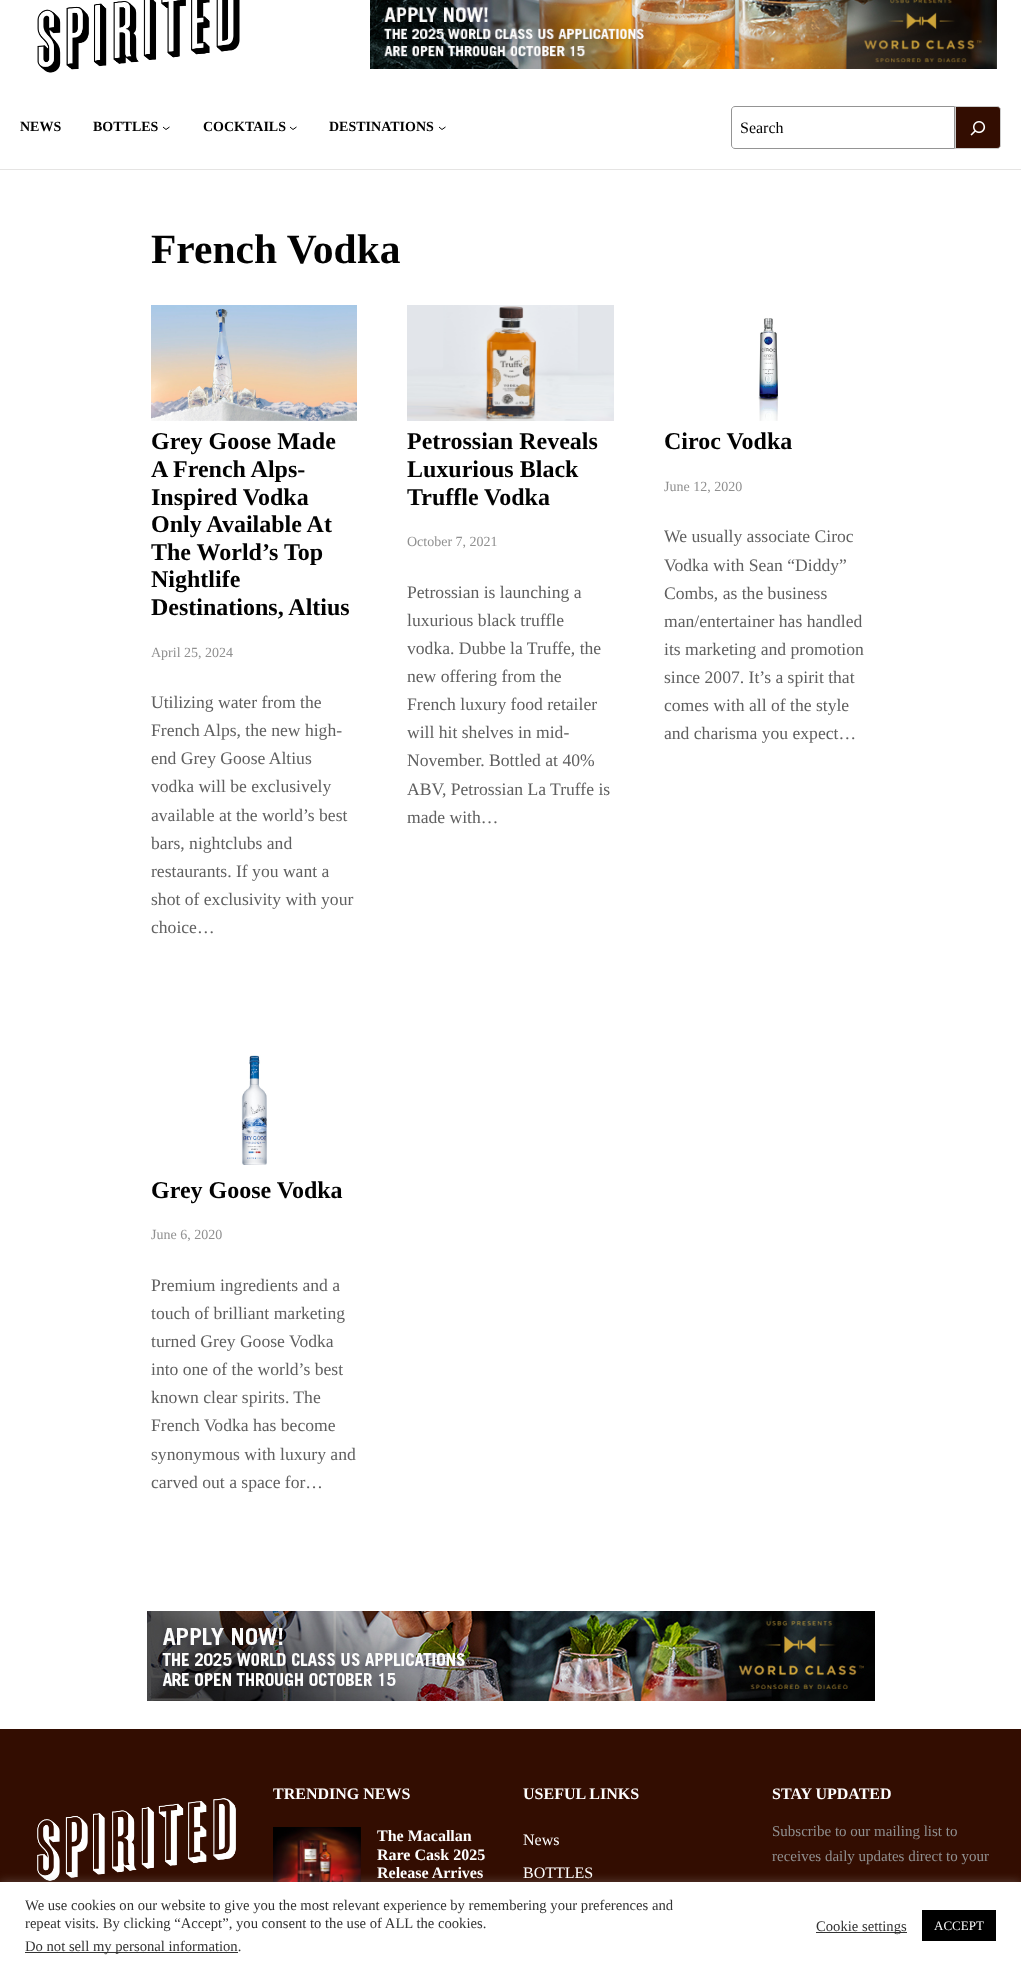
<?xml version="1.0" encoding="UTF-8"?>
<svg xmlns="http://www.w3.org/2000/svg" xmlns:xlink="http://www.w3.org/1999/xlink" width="1021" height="1969">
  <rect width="100%" height="100%" fill="#ffffff" />
  <image x="37" y="0" width="203" height="73" xlink:href="image1.png" />
  <image x="370" y="0" width="627" height="69" xlink:href="image2.png" />
  <rect y="169" width="1021" height="1" fill="#e5e4e3" />
  <path d="M 163 127 l 3 2.5 l 3.5 -2.5" fill="none" stroke="#020202" />
  <path d="M 290 127 l 3 2.5 l 3.5 -2.5" fill="none" stroke="#020202" />
  <path d="M 439 127 l 3 2.5 l 3.5 -2.5" fill="none" stroke="#020202" />
  <path d="M 735 106.5 h 219.5 v 42 h -219.5 c -2 0 -3.5 -1.5 -3.5 -3.5 v -35 c 0 -2 1.5 -3.5 3.5 -3.5 z" fill="none" stroke="#949494" />
  <path d="M 955.5 106.5 h 41.5 c 2 0 3.5 1.5 3.5 3.5 v 35 c 0 2 -1.5 3.5 -3.5 3.5 h -41.5 z" fill="#330d01" stroke="#cccccc" />
  <image x="970" y="121" width="16" height="15" xlink:href="image3.png" />
  <image x="151" y="305" width="206" height="116" xlink:href="image4.png" />
  <image x="407" y="305" width="207" height="116" xlink:href="image5.png" />
  <image x="758" y="318" width="21" height="103" xlink:href="image6.png" />
  <image x="241" y="1055" width="26" height="110" xlink:href="image7.png" />
  <image x="147" y="1611" width="728" height="90" xlink:href="image8.png" />
  <rect y="1729" width="1021" height="153" fill="#330d01" />
  <image x="37" y="1798" width="199" height="83" xlink:href="image9.png" />
  <image x="273" y="1827" width="88" height="55" xlink:href="image10.png" />
  <rect y="1881" width="1021" height="87" fill="#acabab" fill-opacity="0.3" filter="blur(5px)" />
  <rect y="1882" width="1021" height="87" fill="#ffffff" />
  <rect x="25" y="1952" width="213" height="1" fill="#333333" />
  <rect x="816" y="1932" width="91" height="1" fill="#333333" />
  <rect x="922" y="1910" width="74" height="31" fill="#000000" />
  <text x="20" y="131" style="font-family: Liberation Serif; font-size: 14px; font-weight: bold; fill: #020202">NEWS</text>
  <text x="93" y="131" style="font-family: Liberation Serif; font-size: 14px; font-weight: bold; fill: #020202">BOTTLES</text>
  <text x="203" y="131" style="font-family: Liberation Serif; font-size: 14px; font-weight: bold; fill: #020202">COCKTAILS</text>
  <text x="329" y="131" style="font-family: Liberation Serif; font-size: 14px; font-weight: bold; fill: #020202">DESTINATIONS</text>
  <text x="740" y="133" style="font-family: Liberation Serif; font-size: 16px; fill: #020202">Search</text>
  <text x="151" y="263" style="font-family: Liberation Serif; font-size: 41.5px; font-weight: bold; fill: #020202">French Vodka</text>
  <text x="151" y="449" style="font-family: Liberation Serif; font-size: 24px; font-weight: bold; fill: #020202">Grey Goose Made</text>
  <text x="151" y="477" style="font-family: Liberation Serif; font-size: 24px; font-weight: bold; fill: #020202">A French Alps-</text>
  <text x="151" y="505" style="font-family: Liberation Serif; font-size: 24px; font-weight: bold; fill: #020202">Inspired Vodka</text>
  <text x="151" y="532" style="font-family: Liberation Serif; font-size: 24px; font-weight: bold; fill: #020202">Only Available At</text>
  <text x="151" y="560" style="font-family: Liberation Serif; font-size: 24px; font-weight: bold; fill: #020202">The World’s Top</text>
  <text x="151" y="587" style="font-family: Liberation Serif; font-size: 24px; font-weight: bold; fill: #020202">Nightlife</text>
  <text x="151" y="615" style="font-family: Liberation Serif; font-size: 24px; font-weight: bold; fill: #020202">Destinations, Altius</text>
  <text x="151" y="657" style="font-family: Liberation Serif; font-size: 14px; fill: #909090">April 25, 2024</text>
  <text x="151" y="708" style="font-family: Liberation Serif; font-size: 17.6px; fill: #606060">Utilizing water from the</text>
  <text x="151" y="736" style="font-family: Liberation Serif; font-size: 17.6px; fill: #606060">French Alps, the new high-</text>
  <text x="151" y="764" style="font-family: Liberation Serif; font-size: 17.6px; fill: #606060">end Grey Goose Altius</text>
  <text x="151" y="792" style="font-family: Liberation Serif; font-size: 17.6px; fill: #606060">vodka will be exclusively</text>
  <text x="151" y="821" style="font-family: Liberation Serif; font-size: 17.6px; fill: #606060">available at the world’s best</text>
  <text x="151" y="849" style="font-family: Liberation Serif; font-size: 17.6px; fill: #606060">bars, nightclubs and</text>
  <text x="151" y="877" style="font-family: Liberation Serif; font-size: 17.6px; fill: #606060">restaurants. If you want a</text>
  <text x="151" y="905" style="font-family: Liberation Serif; font-size: 17.6px; fill: #606060">shot of exclusivity with your</text>
  <text x="151" y="933" style="font-family: Liberation Serif; font-size: 17.6px; fill: #606060">choice…</text>
  <text x="407" y="449" style="font-family: Liberation Serif; font-size: 24px; font-weight: bold; fill: #020202">Petrossian Reveals</text>
  <text x="407" y="477" style="font-family: Liberation Serif; font-size: 24px; font-weight: bold; fill: #020202">Luxurious Black</text>
  <text x="407" y="505" style="font-family: Liberation Serif; font-size: 24px; font-weight: bold; fill: #020202">Truffle Vodka</text>
  <text x="407" y="546" style="font-family: Liberation Serif; font-size: 14px; fill: #909090">October 7, 2021</text>
  <text x="407" y="598" style="font-family: Liberation Serif; font-size: 17.6px; fill: #606060">Petrossian is launching a</text>
  <text x="407" y="626" style="font-family: Liberation Serif; font-size: 17.6px; fill: #606060">luxurious black truffle</text>
  <text x="407" y="654" style="font-family: Liberation Serif; font-size: 17.6px; fill: #606060">vodka. Dubbe la Truffe, the</text>
  <text x="407" y="682" style="font-family: Liberation Serif; font-size: 17.6px; fill: #606060">new offering from the</text>
  <text x="407" y="710" style="font-family: Liberation Serif; font-size: 17.6px; fill: #606060">French luxury food retailer</text>
  <text x="407" y="738" style="font-family: Liberation Serif; font-size: 17.6px; fill: #606060">will hit shelves in mid-</text>
  <text x="407" y="766" style="font-family: Liberation Serif; font-size: 17.6px; fill: #606060">November. Bottled at 40%</text>
  <text x="407" y="795" style="font-family: Liberation Serif; font-size: 17.6px; fill: #606060">ABV, Petrossian La Truffe is</text>
  <text x="407" y="823" style="font-family: Liberation Serif; font-size: 17.6px; fill: #606060">made with…</text>
  <text x="664" y="449" style="font-family: Liberation Serif; font-size: 24px; font-weight: bold; fill: #020202">Ciroc Vodka</text>
  <text x="664" y="491" style="font-family: Liberation Serif; font-size: 14px; fill: #909090">June 12, 2020</text>
  <text x="664" y="542" style="font-family: Liberation Serif; font-size: 17.6px; fill: #606060">We usually associate Ciroc</text>
  <text x="664" y="571" style="font-family: Liberation Serif; font-size: 17.6px; fill: #606060">Vodka with Sean “Diddy”</text>
  <text x="664" y="599" style="font-family: Liberation Serif; font-size: 17.6px; fill: #606060">Combs, as the business</text>
  <text x="664" y="627" style="font-family: Liberation Serif; font-size: 17.6px; fill: #606060">man/entertainer has handled</text>
  <text x="664" y="655" style="font-family: Liberation Serif; font-size: 17.6px; fill: #606060">its marketing and promotion</text>
  <text x="664" y="683" style="font-family: Liberation Serif; font-size: 17.6px; fill: #606060">since 2007. It’s a spirit that</text>
  <text x="664" y="711" style="font-family: Liberation Serif; font-size: 17.6px; fill: #606060">comes with all of the style</text>
  <text x="664" y="739" style="font-family: Liberation Serif; font-size: 17.6px; fill: #606060">and charisma you expect…</text>
  <text x="151" y="1198" style="font-family: Liberation Serif; font-size: 24px; font-weight: bold; fill: #020202">Grey Goose Vodka</text>
  <text x="151" y="1239" style="font-family: Liberation Serif; font-size: 14px; fill: #909090">June 6, 2020</text>
  <text x="151" y="1291" style="font-family: Liberation Serif; font-size: 17.6px; fill: #606060">Premium ingredients and a</text>
  <text x="151" y="1319" style="font-family: Liberation Serif; font-size: 17.6px; fill: #606060">touch of brilliant marketing</text>
  <text x="151" y="1347" style="font-family: Liberation Serif; font-size: 17.6px; fill: #606060">turned Grey Goose Vodka</text>
  <text x="151" y="1375" style="font-family: Liberation Serif; font-size: 17.6px; fill: #606060">into one of the world’s best</text>
  <text x="151" y="1403" style="font-family: Liberation Serif; font-size: 17.6px; fill: #606060">known clear spirits. The</text>
  <text x="151" y="1431" style="font-family: Liberation Serif; font-size: 17.6px; fill: #606060">French Vodka has become</text>
  <text x="151" y="1460" style="font-family: Liberation Serif; font-size: 17.6px; fill: #606060">synonymous with luxury and</text>
  <text x="151" y="1488" style="font-family: Liberation Serif; font-size: 17.6px; fill: #606060">carved out a space for…</text>
  <text x="273" y="1799" style="font-family: Liberation Serif; font-size: 16px; font-weight: bold; fill: #fefefe">TRENDING NEWS</text>
  <text x="377" y="1841" style="font-family: Liberation Serif; font-size: 16px; font-weight: bold; fill: #fefefe">The Macallan</text>
  <text x="377" y="1860" style="font-family: Liberation Serif; font-size: 16px; font-weight: bold; fill: #fefefe">Rare Cask 2025</text>
  <text x="377" y="1878" style="font-family: Liberation Serif; font-size: 16px; font-weight: bold; fill: #fefefe">Release Arrives</text>
  <text x="523" y="1799" style="font-family: Liberation Serif; font-size: 16px; font-weight: bold; fill: #fefefe">USEFUL LINKS</text>
  <text x="523" y="1845" style="font-family: Liberation Serif; font-size: 16px; fill: #fefefe">News</text>
  <text x="523" y="1878" style="font-family: Liberation Serif; font-size: 16px; fill: #fefefe">BOTTLES</text>
  <text x="772" y="1799" style="font-family: Liberation Serif; font-size: 16px; font-weight: bold; fill: #fefefe">STAY UPDATED</text>
  <text x="772" y="1836" style="font-family: Liberation Serif; font-size: 15px; fill: #909090">Subscribe to our mailing list to</text>
  <text x="772" y="1861" style="font-family: Liberation Serif; font-size: 15px; fill: #909090">receives daily updates direct to your</text>
  <text x="25" y="1910" style="font-family: Liberation Serif; font-size: 14.65px; fill: #333333">We use cookies on our website to give you the most relevant experience by remembering your preferences and</text>
  <text x="25" y="1928" style="font-family: Liberation Serif; font-size: 14.65px; fill: #333333">repeat visits. By clicking “Accept”, you consent to the use of ALL the cookies.</text>
  <text x="25" y="1951" style="font-family: Liberation Serif; font-size: 14.65px; fill: #333333">Do not sell my personal information.</text>
  <text x="816" y="1931" style="font-family: Liberation Serif; font-size: 14.65px; fill: #333333">Cookie settings</text>
  <text x="934" y="1930" style="font-family: Liberation Serif; font-size: 13px; fill: #fefefe">ACCEPT</text>
</svg>
